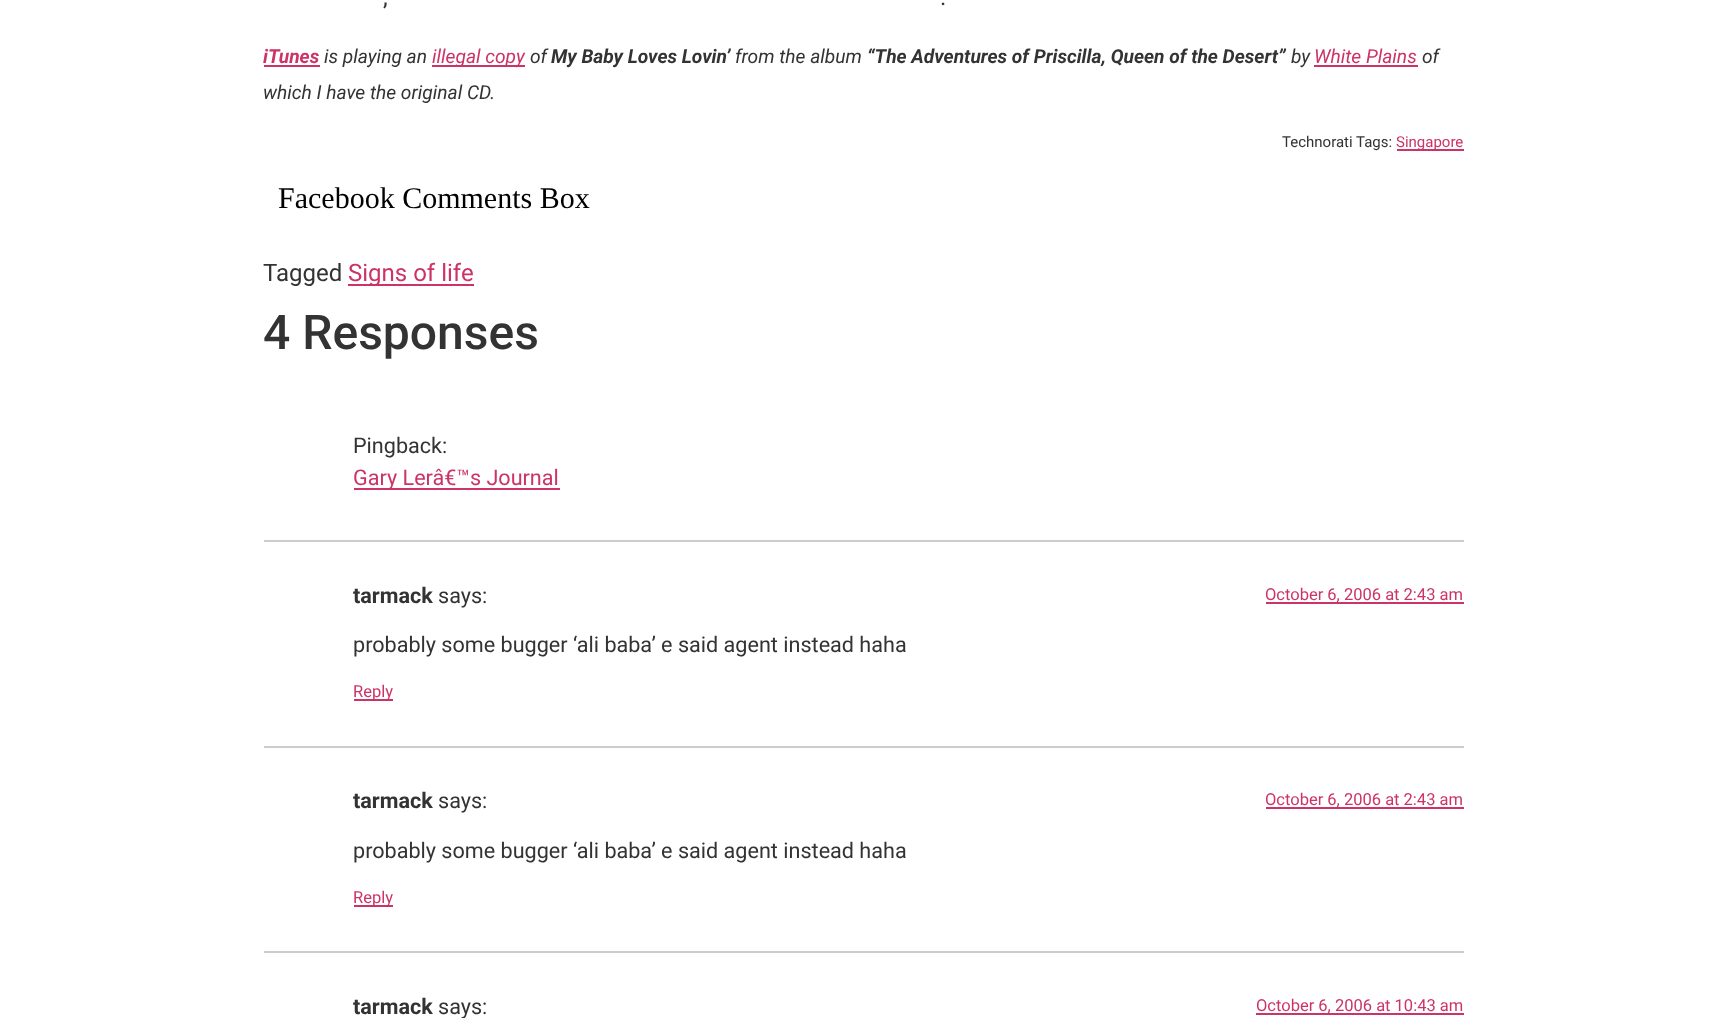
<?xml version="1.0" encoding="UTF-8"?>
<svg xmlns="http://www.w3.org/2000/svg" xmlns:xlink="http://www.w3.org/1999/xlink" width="1726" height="1018">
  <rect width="100%" height="100%" fill="#ffffff" />
  <rect x="264" y="65" width="56" height="2" fill="#cc3366" />
  <rect x="432" y="65" width="93" height="2" fill="#cc3366" />
  <rect x="1314" y="65" width="104" height="2" fill="#cc3366" />
  <rect x="1397" y="149" width="67" height="2" fill="#cc3366" />
  <rect x="348" y="284" width="126" height="2" fill="#cc3366" />
  <rect x="264" y="540" width="1200" height="2" fill="#cccccc" />
  <rect x="354" y="488" width="206" height="2" fill="#cc3366" />
  <rect x="264" y="746" width="1200" height="2" fill="#cccccc" />
  <rect x="1266" y="602" width="198" height="2" fill="#cc3366" />
  <rect x="354" y="699" width="39" height="2" fill="#cc3366" />
  <rect x="264" y="951" width="1200" height="2" fill="#cccccc" />
  <rect x="1266" y="807" width="198" height="2" fill="#cc3366" />
  <rect x="354" y="905" width="39" height="2" fill="#cc3366" />
  <rect x="1256" y="1013" width="208" height="2" fill="#cc3366" />
  <text x="383" y="5" style="font-family: Roboto; font-size: 24px; fill: #333333">,</text>
  <text x="940" y="5" style="font-family: Roboto; font-size: 24px; fill: #333333">.</text>
  <text x="263" y="63" style="font-family: Roboto; font-size: 19.2px; font-weight: bold; font-style: italic; fill: #cc3366">iTunes</text>
  <text x="324" y="63" style="font-family: Roboto; font-size: 19.2px; font-style: italic; fill: #333333">is playing an</text>
  <text x="432" y="63" style="font-family: Roboto; font-size: 19.2px; font-style: italic; fill: #cc3366">illegal copy</text>
  <text x="530" y="63" style="font-family: Roboto; font-size: 19.2px; font-style: italic; fill: #333333">of</text>
  <text x="551" y="63" style="font-family: Roboto; font-size: 19.2px; font-weight: bold; font-style: italic; fill: #333333">My Baby Loves Lovin’</text>
  <text x="735" y="63" style="font-family: Roboto; font-size: 19.2px; font-style: italic; fill: #333333">from the album</text>
  <text x="867" y="63" style="font-family: Roboto; font-size: 19.2px; font-weight: bold; font-style: italic; fill: #333333">“The Adventures of Priscilla, Queen of the Desert”</text>
  <text x="1291" y="63" style="font-family: Roboto; font-size: 19.2px; font-style: italic; fill: #333333">by</text>
  <text x="1314" y="63" style="font-family: Roboto; font-size: 19.2px; font-style: italic; fill: #cc3366">White Plains</text>
  <text x="1422" y="63" style="font-family: Roboto; font-size: 19.2px; font-style: italic; fill: #333333">of</text>
  <text x="263" y="99" style="font-family: Roboto; font-size: 19.2px; font-style: italic; fill: #333333">which I have the original CD.</text>
  <text x="1282" y="147" style="font-family: Roboto; font-size: 15px; fill: #333333">Technorati Tags:</text>
  <text x="1396" y="147" style="font-family: Roboto; font-size: 15px; fill: #cc3366">Singapore</text>
  <text x="278" y="208" style="font-family: Liberation Serif; font-size: 30px; fill: #000000">Facebook Comments Box</text>
  <text x="263" y="281" style="font-family: Roboto; font-size: 24px; fill: #333333">Tagged</text>
  <text x="348" y="281" style="font-family: Roboto; font-size: 24px; fill: #cc3366">Signs of life</text>
  <text x="263" y="349" style="font-family: Roboto; font-size: 48px; font-weight: 500; fill: #333333">4 Responses</text>
  <text x="353" y="453" style="font-family: Roboto; font-size: 21.6px; fill: #333333">Pingback:</text>
  <text x="353" y="485" style="font-family: Roboto; font-size: 21.6px; fill: #cc3366">Gary Lerâ€™s Journal</text>
  <text x="353" y="603" style="font-family: Roboto; font-size: 21.6px; font-weight: bold; fill: #333333">tarmack</text>
  <text x="438" y="603" style="font-family: Roboto; font-size: 21.6px; fill: #333333">says:</text>
  <text x="1265" y="600" style="font-family: Roboto; font-size: 16.5px; fill: #cc3366">October 6, 2006 at 2:43 am</text>
  <text x="353" y="652" style="font-family: Roboto; font-size: 21.6px; fill: #333333">probably some bugger ‘ali baba’ e said agent instead haha</text>
  <text x="353" y="697" style="font-family: Roboto; font-size: 16.5px; fill: #cc3366">Reply</text>
  <text x="353" y="808" style="font-family: Roboto; font-size: 21.6px; font-weight: bold; fill: #333333">tarmack</text>
  <text x="438" y="808" style="font-family: Roboto; font-size: 21.6px; fill: #333333">says:</text>
  <text x="1265" y="805" style="font-family: Roboto; font-size: 16.5px; fill: #cc3366">October 6, 2006 at 2:43 am</text>
  <text x="353" y="858" style="font-family: Roboto; font-size: 21.6px; fill: #333333">probably some bugger ‘ali baba’ e said agent instead haha</text>
  <text x="353" y="903" style="font-family: Roboto; font-size: 16.5px; fill: #cc3366">Reply</text>
  <text x="353" y="1014" style="font-family: Roboto; font-size: 21.6px; font-weight: bold; fill: #333333">tarmack</text>
  <text x="438" y="1014" style="font-family: Roboto; font-size: 21.6px; fill: #333333">says:</text>
  <text x="1256" y="1011" style="font-family: Roboto; font-size: 16.5px; fill: #cc3366">October 6, 2006 at 10:43 am</text>
</svg>
